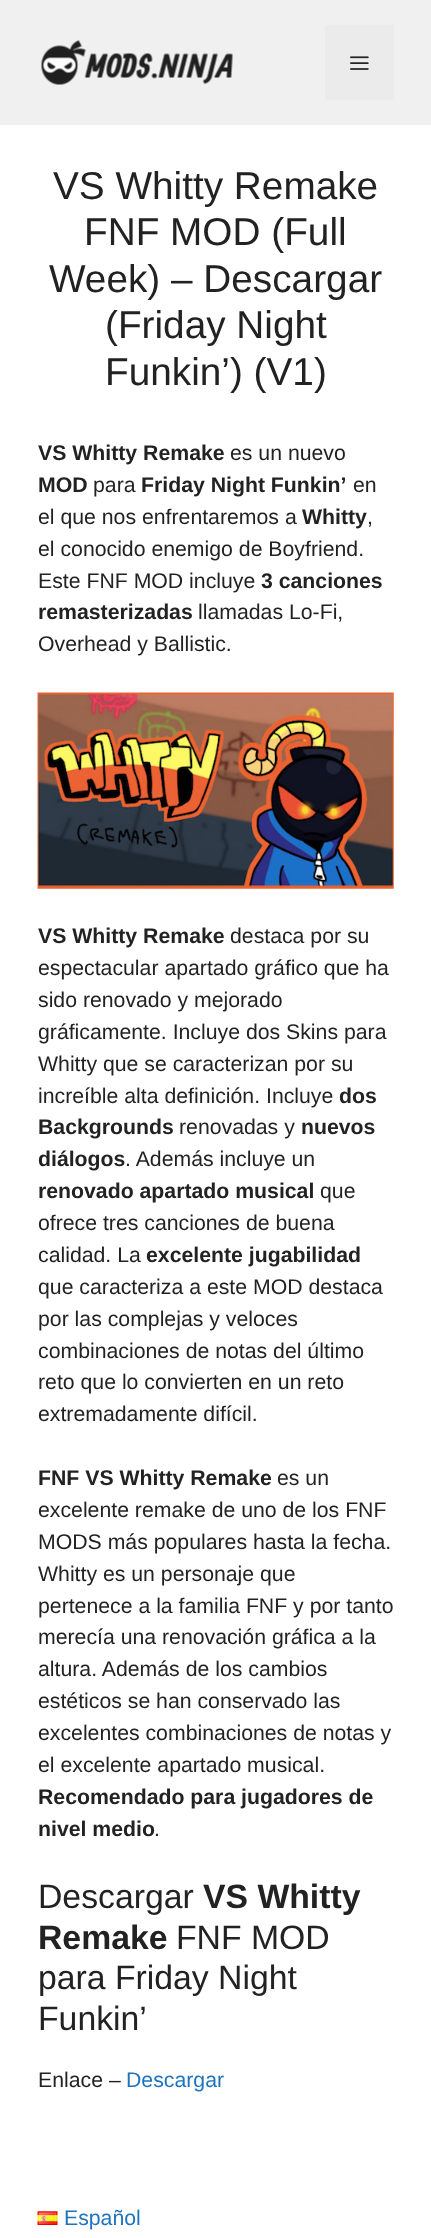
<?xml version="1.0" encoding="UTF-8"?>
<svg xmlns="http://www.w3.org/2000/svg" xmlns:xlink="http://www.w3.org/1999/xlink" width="431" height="2238">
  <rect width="100%" height="100%" fill="#ffffff" />
  <rect width="431" height="125" fill="#f0f0f0" />
  <image x="41" y="40" width="192" height="45" xlink:href="image1.png" />
  <rect x="325" y="25" width="69" height="75" fill="#ebebeb" />
  <image x="350" y="56" width="19" height="14" xlink:href="image2.png" />
  <image x="37" y="692" width="357" height="197" xlink:href="image3.png" />
  <image x="37" y="2211" width="21" height="14" xlink:href="image4.png" />
  <text x="53" y="199" style="font-family: Liberation Sans; font-size: 38.75px; fill: #222222">VS Whitty Remake</text>
  <text x="84" y="245" style="font-family: Liberation Sans; font-size: 38.75px; fill: #222222">FNF MOD (Full</text>
  <text x="49" y="292" style="font-family: Liberation Sans; font-size: 38.75px; fill: #222222">Week) – Descargar</text>
  <text x="105" y="338" style="font-family: Liberation Sans; font-size: 38.75px; fill: #222222">(Friday Night</text>
  <text x="105" y="385" style="font-family: Liberation Sans; font-size: 38.75px; fill: #222222">Funkin’) (V1)</text>
  <text x="38" y="460" style="font-family: Liberation Sans; font-size: 21.25px; font-weight: bold; fill: #222222">VS Whitty Remake</text>
  <text x="230" y="460" style="font-family: Liberation Sans; font-size: 21.25px; fill: #222222">es un nuevo</text>
  <text x="38" y="492" style="font-family: Liberation Sans; font-size: 21.25px; font-weight: bold; fill: #222222">MOD</text>
  <text x="93" y="492" style="font-family: Liberation Sans; font-size: 21.25px; fill: #222222">para</text>
  <text x="141" y="492" style="font-family: Liberation Sans; font-size: 21.25px; font-weight: bold; fill: #222222">Friday Night Funkin’</text>
  <text x="353" y="492" style="font-family: Liberation Sans; font-size: 21.25px; fill: #222222">en</text>
  <text x="38" y="524" style="font-family: Liberation Sans; font-size: 21.25px; fill: #222222">el que nos enfrentaremos a</text>
  <text x="302" y="524" style="font-family: Liberation Sans; font-size: 21.25px; font-weight: bold; fill: #222222">Whitty</text>
  <text x="367" y="524" style="font-family: Liberation Sans; font-size: 21.25px; fill: #222222">,</text>
  <text x="38" y="556" style="font-family: Liberation Sans; font-size: 21.25px; fill: #222222">el conocido enemigo de Boyfriend.</text>
  <text x="38" y="588" style="font-family: Liberation Sans; font-size: 21.25px; fill: #222222">Este FNF MOD incluye</text>
  <text x="261" y="588" style="font-family: Liberation Sans; font-size: 21.25px; font-weight: bold; fill: #222222">3 canciones</text>
  <text x="38" y="619" style="font-family: Liberation Sans; font-size: 21.25px; font-weight: bold; fill: #222222">remasterizadas</text>
  <text x="198" y="619" style="font-family: Liberation Sans; font-size: 21.25px; fill: #222222">llamadas Lo-Fi,</text>
  <text x="38" y="651" style="font-family: Liberation Sans; font-size: 21.25px; fill: #222222">Overhead y Ballistic.</text>
  <text x="38" y="943" style="font-family: Liberation Sans; font-size: 21.25px; font-weight: bold; fill: #222222">VS Whitty Remake</text>
  <text x="230" y="943" style="font-family: Liberation Sans; font-size: 21.25px; fill: #222222">destaca por su</text>
  <text x="38" y="975" style="font-family: Liberation Sans; font-size: 21.25px; fill: #222222">espectacular apartado gráfico que ha</text>
  <text x="38" y="1007" style="font-family: Liberation Sans; font-size: 21.25px; fill: #222222">sido renovado y mejorado</text>
  <text x="38" y="1039" style="font-family: Liberation Sans; font-size: 21.25px; fill: #222222">gráficamente. Incluye dos Skins para</text>
  <text x="38" y="1071" style="font-family: Liberation Sans; font-size: 21.25px; fill: #222222">Whitty que se caracterizan por su</text>
  <text x="38" y="1103" style="font-family: Liberation Sans; font-size: 21.25px; fill: #222222">increíble alta definición. Incluye</text>
  <text x="339" y="1103" style="font-family: Liberation Sans; font-size: 21.25px; font-weight: bold; fill: #222222">dos</text>
  <text x="38" y="1134" style="font-family: Liberation Sans; font-size: 21.25px; font-weight: bold; fill: #222222">Backgrounds</text>
  <text x="179" y="1134" style="font-family: Liberation Sans; font-size: 21.25px; fill: #222222">renovadas y</text>
  <text x="301" y="1134" style="font-family: Liberation Sans; font-size: 21.25px; font-weight: bold; fill: #222222">nuevos</text>
  <text x="38" y="1166" style="font-family: Liberation Sans; font-size: 21.25px; font-weight: bold; fill: #222222">diálogos</text>
  <text x="125" y="1166" style="font-family: Liberation Sans; font-size: 21.25px; fill: #222222">. Además incluye un</text>
  <text x="38" y="1198" style="font-family: Liberation Sans; font-size: 21.25px; font-weight: bold; fill: #222222">renovado apartado musical</text>
  <text x="320" y="1198" style="font-family: Liberation Sans; font-size: 21.25px; fill: #222222">que</text>
  <text x="38" y="1230" style="font-family: Liberation Sans; font-size: 21.25px; fill: #222222">ofrece tres canciones de buena</text>
  <text x="38" y="1262" style="font-family: Liberation Sans; font-size: 21.25px; fill: #222222">calidad. La</text>
  <text x="146" y="1262" style="font-family: Liberation Sans; font-size: 21.25px; font-weight: bold; fill: #222222">excelente jugabilidad</text>
  <text x="38" y="1294" style="font-family: Liberation Sans; font-size: 21.25px; fill: #222222">que caracteriza a este MOD destaca</text>
  <text x="38" y="1326" style="font-family: Liberation Sans; font-size: 21.25px; fill: #222222">por las complejas y veloces</text>
  <text x="38" y="1358" style="font-family: Liberation Sans; font-size: 21.25px; fill: #222222">combinaciones de notas del último</text>
  <text x="38" y="1389" style="font-family: Liberation Sans; font-size: 21.25px; fill: #222222">reto que lo convierten en un reto</text>
  <text x="38" y="1421" style="font-family: Liberation Sans; font-size: 21.25px; fill: #222222">extremadamente difícil.</text>
  <text x="38" y="1485" style="font-family: Liberation Sans; font-size: 21.25px; font-weight: bold; fill: #222222">FNF VS Whitty Remake</text>
  <text x="277" y="1485" style="font-family: Liberation Sans; font-size: 21.25px; fill: #222222">es un</text>
  <text x="38" y="1517" style="font-family: Liberation Sans; font-size: 21.25px; fill: #222222">excelente remake de uno de los FNF</text>
  <text x="38" y="1549" style="font-family: Liberation Sans; font-size: 21.25px; fill: #222222">MODS más populares hasta la fecha.</text>
  <text x="38" y="1581" style="font-family: Liberation Sans; font-size: 21.25px; fill: #222222">Whitty es un personaje que</text>
  <text x="38" y="1613" style="font-family: Liberation Sans; font-size: 21.25px; fill: #222222">pertenece a la familia FNF y por tanto</text>
  <text x="38" y="1644" style="font-family: Liberation Sans; font-size: 21.25px; fill: #222222">merecía una renovación gráfica a la</text>
  <text x="38" y="1676" style="font-family: Liberation Sans; font-size: 21.25px; fill: #222222">altura. Además de los cambios</text>
  <text x="38" y="1708" style="font-family: Liberation Sans; font-size: 21.25px; fill: #222222">estéticos se han conservado las</text>
  <text x="38" y="1740" style="font-family: Liberation Sans; font-size: 21.25px; fill: #222222">excelentes combinaciones de notas y</text>
  <text x="38" y="1772" style="font-family: Liberation Sans; font-size: 21.25px; fill: #222222">el excelente apartado musical.</text>
  <text x="38" y="1804" style="font-family: Liberation Sans; font-size: 21.25px; font-weight: bold; fill: #222222">Recomendado para jugadores de</text>
  <text x="38" y="1836" style="font-family: Liberation Sans; font-size: 21.25px; font-weight: bold; fill: #222222">nivel medio</text>
  <text x="154" y="1836" style="font-family: Liberation Sans; font-size: 21.25px; fill: #222222">.</text>
  <text x="38" y="1908" style="font-family: Liberation Sans; font-size: 33.75px; fill: #222222">Descargar</text>
  <text x="203" y="1908" style="font-family: Liberation Sans; font-size: 33.75px; font-weight: bold; fill: #222222">VS Whitty</text>
  <text x="38" y="1949" style="font-family: Liberation Sans; font-size: 33.75px; font-weight: bold; fill: #222222">Remake</text>
  <text x="176" y="1949" style="font-family: Liberation Sans; font-size: 33.75px; fill: #222222">FNF MOD</text>
  <text x="38" y="1989" style="font-family: Liberation Sans; font-size: 33.75px; fill: #222222">para Friday Night</text>
  <text x="38" y="2030" style="font-family: Liberation Sans; font-size: 33.75px; fill: #222222">Funkin’</text>
  <text x="38" y="2087" style="font-family: Liberation Sans; font-size: 21.25px; fill: #222222">Enlace –</text>
  <text x="126" y="2087" style="font-family: Liberation Sans; font-size: 21.25px; fill: #1e73be">Descargar</text>
  <text x="64" y="2225" style="font-family: Liberation Sans; font-size: 21.25px; fill: #1e73be">Español</text>
</svg>
